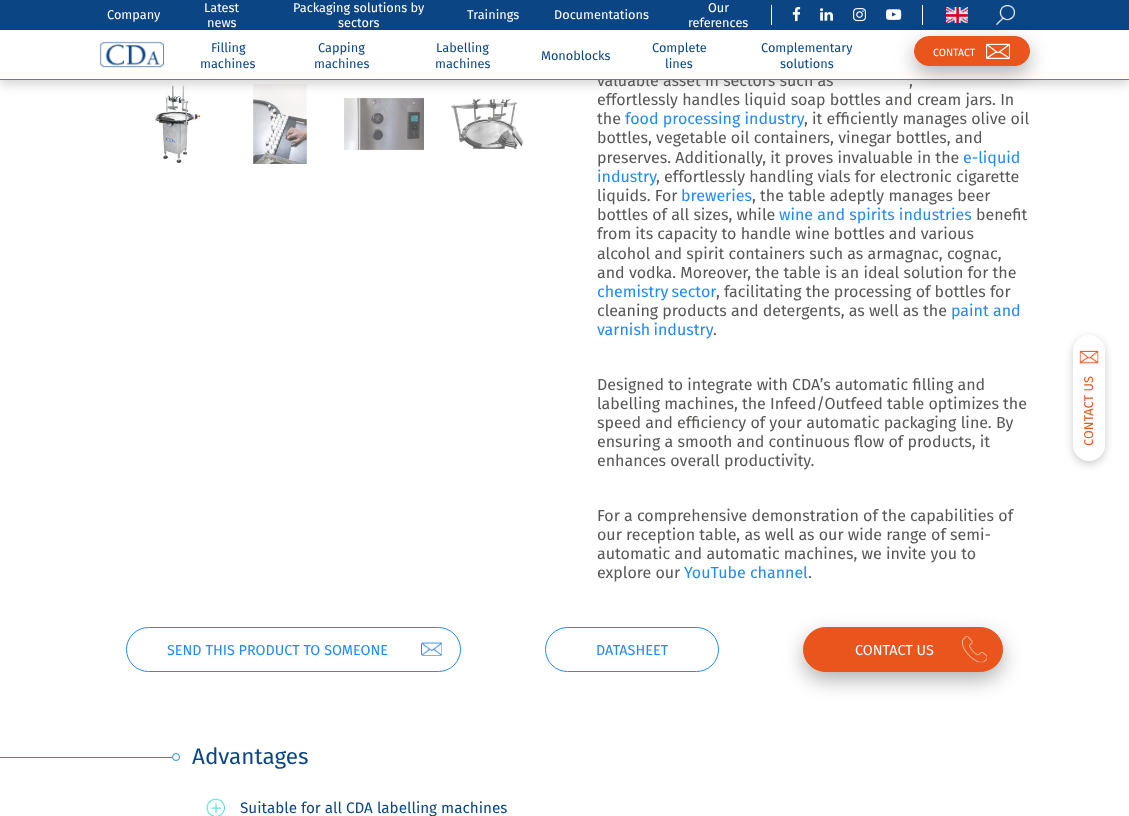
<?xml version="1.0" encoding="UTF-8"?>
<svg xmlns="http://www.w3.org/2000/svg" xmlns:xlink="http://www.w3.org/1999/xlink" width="1129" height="816">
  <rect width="100%" height="100%" fill="#ffffff" />
  <rect width="1129" height="30" fill="#0c4584" />
  <rect x="771" y="5" width="1" height="20" fill="#ffffff" />
  <image x="792" y="7" width="9" height="15" xlink:href="image1.png" />
  <image x="820" y="8" width="14" height="13" xlink:href="image2.png" />
  <image x="853" y="8" width="14" height="14" xlink:href="image3.png" />
  <image x="886" y="9" width="16" height="11" xlink:href="image4.png" />
  <rect x="922" y="5" width="1" height="20" fill="#ffffff" />
  <image x="946" y="7" width="22" height="16" xlink:href="image5.png" />
  <image x="996" y="5" width="19" height="20" xlink:href="image6.png" />
  <image x="153" y="84" width="48" height="79" xlink:href="image10.png" />
  <image x="253" y="84" width="55" height="80" xlink:href="image11.png" />
  <image x="344" y="97" width="80" height="54" xlink:href="image12.png" />
  <image x="450" y="97" width="75" height="55" xlink:href="image13.png" />
  <rect y="35" width="1129" height="50" fill="#000000" fill-opacity="0.15" filter="blur(5px)" />
  <rect x="1073" y="338" width="32" height="126" rx="16" fill="#000000" fill-opacity="0.2" filter="blur(4px)" />
  <rect x="1073" y="335" width="32" height="126" rx="16" fill="#ffffff" />
  <image x="1079" y="350" width="20" height="14" xlink:href="image9.png" />
  <rect x="126.5" y="627.5" width="334" height="44" rx="22" fill="none" stroke="#218aff" />
  <image x="421" y="642" width="21" height="14" xlink:href="image14.png" />
  <rect x="545.5" y="627.5" width="173" height="44" rx="22" fill="none" stroke="#218aff" />
  <rect x="803" y="635" width="200" height="45" rx="22.5" fill="#000000" fill-opacity="0.3" filter="blur(10px)" />
  <rect x="803.5" y="627.5" width="199" height="44" rx="22" fill="#e9551c" stroke="#e9551c" />
  <image x="962" y="636" width="25" height="27" xlink:href="image15.png" />
  <rect y="757" width="172" height="1" fill="#218aff" />
  <circle cx="176" cy="757" r="3.5" fill="none" stroke="#218aff" />
  <image x="206" y="798" width="19" height="18" xlink:href="image16.png" />
  <text x="107" y="19" style="font-family: Fira Sans; font-size: 12.75px; fill: #ffffff">Company</text>
  <text x="204" y="12" style="font-family: Fira Sans; font-size: 12.75px; fill: #ffffff">Latest</text>
  <text x="207" y="27" style="font-family: Fira Sans; font-size: 12.75px; fill: #ffffff">news</text>
  <text x="293" y="12" style="font-family: Fira Sans; font-size: 12.75px; fill: #ffffff">Packaging solutions by</text>
  <text x="338" y="27" style="font-family: Fira Sans; font-size: 12.75px; fill: #ffffff">sectors</text>
  <text x="467" y="19" style="font-family: Fira Sans; font-size: 12.75px; fill: #ffffff">Trainings</text>
  <text x="554" y="19" style="font-family: Fira Sans; font-size: 12.75px; fill: #ffffff">Documentations</text>
  <text x="708" y="12" style="font-family: Fira Sans; font-size: 12.75px; fill: #ffffff">Our</text>
  <text x="688" y="27" style="font-family: Fira Sans; font-size: 12.75px; fill: #ffffff">references</text>
  <text x="1093" y="446" transform="rotate(-90 1093 446)" style="font-family: Fira Sans; font-size: 12.75px; fill: #e9551c">CONTACT US</text>
  <text x="597" y="86" style="font-family: Fira Sans; font-size: 16px; fill: #575756">valuable asset in sectors such as</text>
  <rect y="79" width="1129" height="1" fill="#e9551c" />
  <rect y="30" width="1129" height="49" fill="#ffffff" />
  <rect x="914" y="44" width="116" height="30" rx="15" fill="#000000" fill-opacity="0.3" filter="blur(10px)" />
  <rect x="914.5" y="36.5" width="115" height="29" rx="14.5" fill="#e9551c" stroke="#e9551c" />
  <image x="986" y="43" width="24" height="16" xlink:href="image8.png" />
  <text x="933" y="56" style="font-family: Fira Sans; font-size: 10.5px; fill: #ffffff">CONTACT</text>
  <text x="780" y="68" style="font-family: Fira Sans; font-size: 12.75px; fill: #0c4584">solutions</text>
  <text x="761" y="52" style="font-family: Fira Sans; font-size: 12.75px; fill: #0c4584">Complementary</text>
  <text x="665" y="68" style="font-family: Fira Sans; font-size: 12.75px; fill: #0c4584">lines</text>
  <text x="652" y="52" style="font-family: Fira Sans; font-size: 12.75px; fill: #0c4584">Complete</text>
  <text x="541" y="60" style="font-family: Fira Sans; font-size: 12.75px; fill: #0c4584">Monoblocks</text>
  <text x="435" y="68" style="font-family: Fira Sans; font-size: 12.75px; fill: #0c4584">machines</text>
  <text x="436" y="52" style="font-family: Fira Sans; font-size: 12.75px; fill: #0c4584">Labelling</text>
  <text x="314" y="68" style="font-family: Fira Sans; font-size: 12.75px; fill: #0c4584">machines</text>
  <text x="318" y="52" style="font-family: Fira Sans; font-size: 12.75px; fill: #0c4584">Capping</text>
  <text x="200" y="68" style="font-family: Fira Sans; font-size: 12.75px; fill: #0c4584">machines</text>
  <text x="211" y="52" style="font-family: Fira Sans; font-size: 12.75px; fill: #0c4584">Filling</text>
  <image x="99" y="41" width="65" height="27" xlink:href="image7.png" />
  <text x="909" y="86" style="font-family: Fira Sans; font-size: 16px; fill: #575756">,</text>
  <text x="597" y="105" style="font-family: Fira Sans; font-size: 16px; fill: #575756">effortlessly handles liquid soap bottles and cream jars. In</text>
  <text x="597" y="124" style="font-family: Fira Sans; font-size: 16px; fill: #575756">the</text>
  <text x="625" y="124" style="font-family: Fira Sans; font-size: 16px; fill: #218aff">food processing industry</text>
  <text x="804" y="124" style="font-family: Fira Sans; font-size: 16px; fill: #575756">, it efficiently manages olive oil</text>
  <text x="597" y="143" style="font-family: Fira Sans; font-size: 16px; fill: #575756">bottles, vegetable oil containers, vinegar bottles, and</text>
  <text x="597" y="163" style="font-family: Fira Sans; font-size: 16px; fill: #575756">preserves. Additionally, it proves invaluable in the</text>
  <text x="963" y="163" style="font-family: Fira Sans; font-size: 16px; fill: #218aff">e-liquid</text>
  <text x="597" y="182" style="font-family: Fira Sans; font-size: 16px; fill: #218aff">industry</text>
  <text x="656" y="182" style="font-family: Fira Sans; font-size: 16px; fill: #575756">, effortlessly handling vials for electronic cigarette</text>
  <text x="597" y="201" style="font-family: Fira Sans; font-size: 16px; fill: #575756">liquids. For</text>
  <text x="681" y="201" style="font-family: Fira Sans; font-size: 16px; fill: #218aff">breweries</text>
  <text x="752" y="201" style="font-family: Fira Sans; font-size: 16px; fill: #575756">, the table adeptly manages beer</text>
  <text x="597" y="220" style="font-family: Fira Sans; font-size: 16px; fill: #575756">bottles of all sizes, while</text>
  <text x="779" y="220" style="font-family: Fira Sans; font-size: 16px; fill: #218aff">wine and spirits industries</text>
  <text x="976" y="220" style="font-family: Fira Sans; font-size: 16px; fill: #575756">benefit</text>
  <text x="597" y="239" style="font-family: Fira Sans; font-size: 16px; fill: #575756">from its capacity to handle wine bottles and various</text>
  <text x="597" y="259" style="font-family: Fira Sans; font-size: 16px; fill: #575756">alcohol and spirit containers such as armagnac, cognac,</text>
  <text x="597" y="278" style="font-family: Fira Sans; font-size: 16px; fill: #575756">and vodka. Moreover, the table is an ideal solution for the</text>
  <text x="597" y="297" word-spacing="-1" style="font-family: Fira Sans; font-size: 16px; fill: #218aff">chemistry sector</text>
  <text x="716" y="297" style="font-family: Fira Sans; font-size: 16px; fill: #575756">, facilitating the processing of bottles for</text>
  <text x="597" y="316" style="font-family: Fira Sans; font-size: 16px; fill: #575756">cleaning products and detergents, as well as the</text>
  <text x="951" y="316" style="font-family: Fira Sans; font-size: 16px; fill: #218aff">paint and</text>
  <text x="597" y="335" word-spacing="-1" style="font-family: Fira Sans; font-size: 16px; fill: #218aff">varnish industry</text>
  <text x="713" y="335" style="font-family: Fira Sans; font-size: 16px; fill: #575756">.</text>
  <text x="597" y="390" style="font-family: Fira Sans; font-size: 16px; fill: #575756">Designed to integrate with CDA’s automatic filling and</text>
  <text x="597" y="409" style="font-family: Fira Sans; font-size: 16px; fill: #575756">labelling machines, the Infeed/Outfeed table optimizes the</text>
  <text x="597" y="428" style="font-family: Fira Sans; font-size: 16px; fill: #575756">speed and efficiency of your automatic packaging line. By</text>
  <text x="597" y="447" style="font-family: Fira Sans; font-size: 16px; fill: #575756">ensuring a smooth and continuous flow of products, it</text>
  <text x="597" y="466" style="font-family: Fira Sans; font-size: 16px; fill: #575756">enhances overall productivity.</text>
  <text x="597" y="521" style="font-family: Fira Sans; font-size: 16px; fill: #575756">For a comprehensive demonstration of the capabilities of</text>
  <text x="597" y="540" style="font-family: Fira Sans; font-size: 16px; fill: #575756">our reception table, as well as our wide range of semi-</text>
  <text x="597" y="559" style="font-family: Fira Sans; font-size: 16px; fill: #575756">automatic and automatic machines, we invite you to</text>
  <text x="597" y="578" style="font-family: Fira Sans; font-size: 16px; fill: #575756">explore our</text>
  <text x="684" y="578" style="font-family: Fira Sans; font-size: 16px; fill: #218aff">YouTube channel</text>
  <text x="808" y="578" style="font-family: Fira Sans; font-size: 16px; fill: #575756">.</text>
  <text x="167" y="655" style="font-family: Fira Sans; font-size: 14.4px; fill: #218aff">SEND THIS PRODUCT TO SOMEONE</text>
  <text x="596" y="655" style="font-family: Fira Sans; font-size: 14.4px; fill: #218aff">DATASHEET</text>
  <text x="855" y="655" style="font-family: Fira Sans; font-size: 14.4px; fill: #ffffff">CONTACT US</text>
  <text x="192" y="764" style="font-family: Fira Sans; font-size: 22.5px; fill: #0c4584">Advantages</text>
  <text x="240" y="813" style="font-family: Fira Sans; font-size: 15.25px; fill: #0c4584">Suitable for all CDA labelling machines</text>
</svg>
